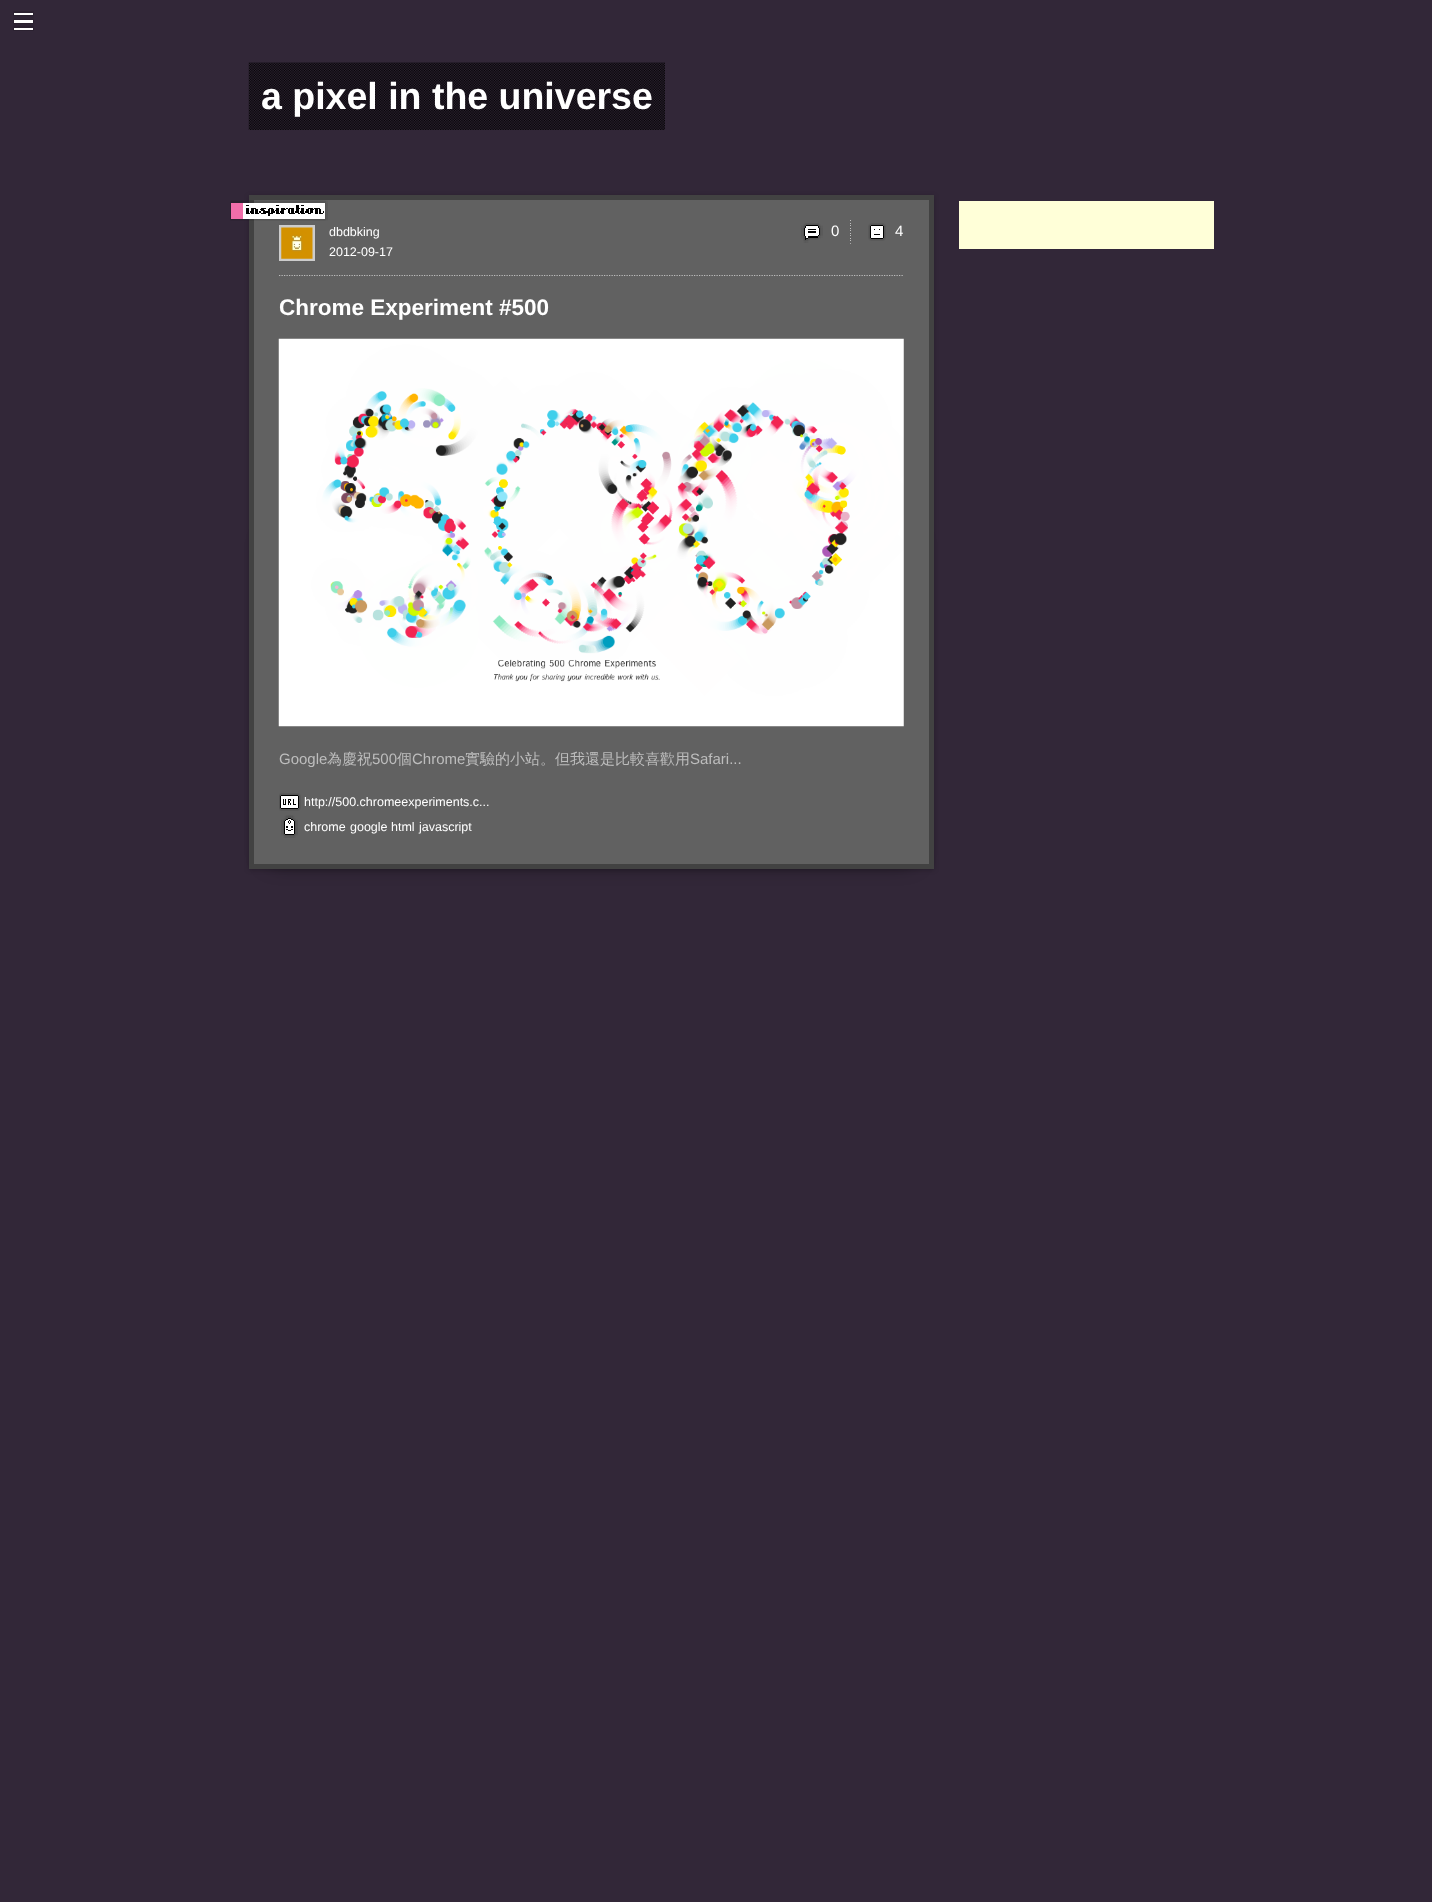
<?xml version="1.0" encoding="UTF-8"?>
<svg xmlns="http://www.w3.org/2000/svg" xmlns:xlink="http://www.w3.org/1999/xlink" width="1432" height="1902">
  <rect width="100%" height="100%" fill="#322738" />
  <image x="13" y="11" width="21" height="20" xlink:href="image1.png" />
  <image x="248" y="62" width="417" height="68" xlink:href="image2.png" />
  <rect x="249" y="196" width="685" height="674" fill="#000000" fill-opacity="0.2" filter="blur(2.5px)" />
  <rect x="266" y="533" width="650" height="331" rx="13" fill="#000000" fill-opacity="0.5" filter="blur(9.5px)" />
  <rect x="251.5" y="197.5" width="680" height="669" fill="#616161" stroke="#424242" stroke-width="5" />
  <image x="230" y="200" width="98" height="21" xlink:href="image3.png" />
  <image x="801" y="223" width="22" height="20" xlink:href="image4.png" />
  <image x="850" y="220" width="1" height="24" xlink:href="image5.png" />
  <image x="868" y="223" width="18" height="18" xlink:href="image6.png" />
  <rect x="280.5" y="226.5" width="33" height="33" fill="none" stroke="#cccccc" stroke-width="3" />
  <image x="281" y="227" width="32" height="32" xlink:href="image7.png" />
  <path d="M 279 275.5 h 625" fill="none" stroke="#bdbdbd" stroke-width="1.2" stroke-dasharray="1.25 1.25" />
  <image x="278" y="338" width="626" height="389" xlink:href="image8.png" />
  <image x="279" y="793" width="22" height="18" xlink:href="image9.png" />
  <image x="281" y="815" width="17" height="23" xlink:href="image10.png" />
  <rect x="959" y="201" width="255" height="48" fill="#ffffd8" />
  <text x="261" y="109" style="font-family: Liberation Sans; font-size: 37.5px; font-weight: bold; fill: #ffffff">a pixel in the universe</text>
  <text x="329" y="236" style="font-family: Liberation Sans; font-size: 12.5px; fill: #ffffff">dbdbking</text>
  <text x="831" y="236" style="font-family: Liberation Sans; font-size: 15px; fill: #ffffff">0</text>
  <text x="895" y="236" style="font-family: Liberation Sans; font-size: 15px; fill: #ffffff">4</text>
  <text x="329" y="256" style="font-family: Liberation Sans; font-size: 12.5px; fill: #ffffff">2012-09-17</text>
  <text x="279" y="315" style="font-family: Liberation Sans; font-size: 22.5px; font-weight: bold; fill: #ffffff">Chrome Experiment #500</text>
  <text x="279" y="764" style="font-family: Liberation Sans; font-size: 15px; fill: #bdbdbd">Google</text>
  <text x="327" y="764" style="font-family: WenQuanYi Zen Hei; font-size: 15px; font-weight: 500; fill: #bdbdbd">為慶祝</text>
  <text x="372" y="764" style="font-family: Liberation Sans; font-size: 15px; fill: #bdbdbd">500</text>
  <text x="397" y="764" style="font-family: WenQuanYi Zen Hei; font-size: 15px; font-weight: 500; fill: #bdbdbd">個</text>
  <text x="412" y="764" style="font-family: Liberation Sans; font-size: 15px; fill: #bdbdbd">Chrome</text>
  <text x="465" y="764" style="font-family: WenQuanYi Zen Hei; font-size: 15px; font-weight: 500; fill: #bdbdbd">實驗的小站。但我還是比較喜歡用</text>
  <text x="690" y="764" style="font-family: Liberation Sans; font-size: 15px; fill: #bdbdbd">Safari...</text>
  <text x="304" y="806" style="font-family: Liberation Sans; font-size: 12.5px; fill: #ffffff">http://500.chromeexperiments.c...</text>
  <text x="304" y="831" style="font-family: Liberation Sans; font-size: 12.5px; fill: #ffffff">chrome</text>
  <text x="350" y="831" style="font-family: Liberation Sans; font-size: 12.5px; fill: #ffffff">google</text>
  <text x="391" y="831" style="font-family: Liberation Sans; font-size: 12.5px; fill: #ffffff">html</text>
  <text x="419" y="831" style="font-family: Liberation Sans; font-size: 12.5px; fill: #ffffff">javascript</text>
</svg>
